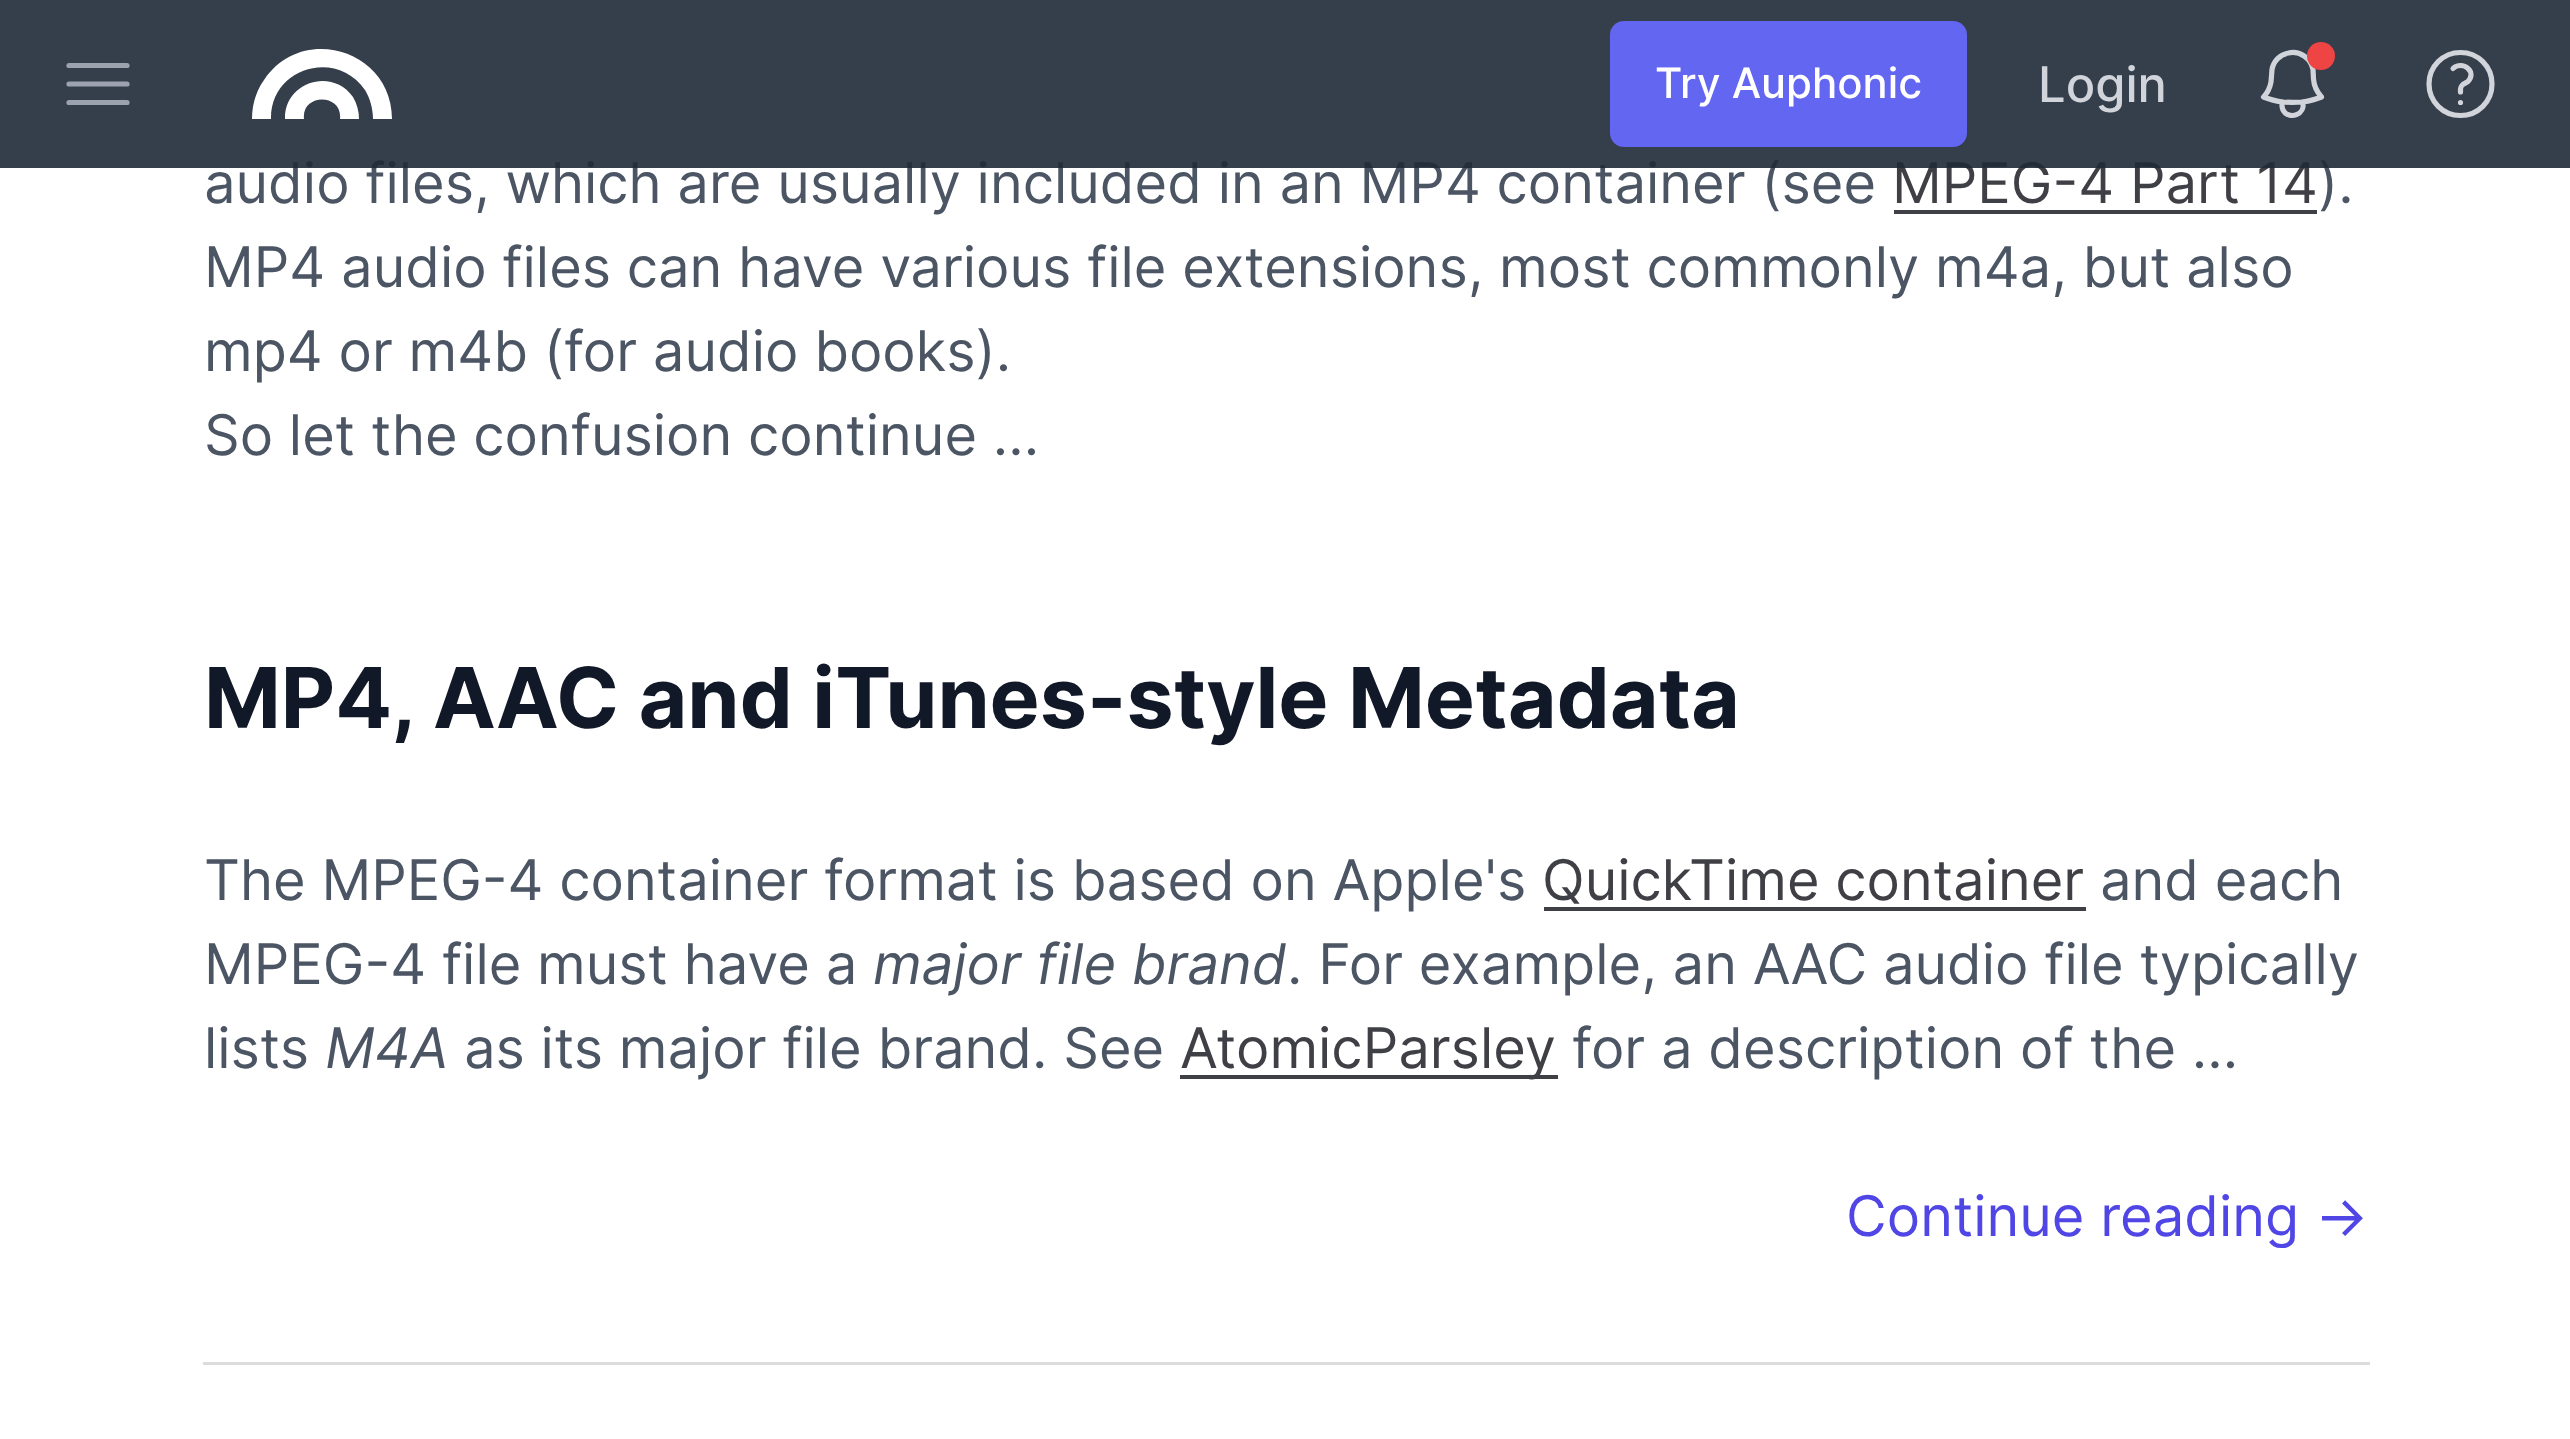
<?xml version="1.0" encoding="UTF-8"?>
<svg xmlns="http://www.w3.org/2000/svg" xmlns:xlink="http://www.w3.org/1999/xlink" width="2570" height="1439">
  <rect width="100%" height="100%" fill="#ffffff" />
  <rect x="203" y="1362" width="2167" height="3" fill="#dcdcdc" />
  <rect x="1894" y="210" width="423" height="4" fill="#3f3f46" />
  <rect x="1544" y="907" width="542" height="4" fill="#3f3f46" />
  <rect x="1180" y="1075" width="378" height="4" fill="#3f3f46" />
  <text x="204" y="203" style="font-family: Inter; font-size: 56px; fill: #4b5563">audio files, which are usually included in an MP4 container (see</text>
  <text x="1892" y="203" style="font-family: Inter; font-size: 56px; fill: #3f3f46">MPEG-4 Part 14</text>
  <text x="2318" y="203" style="font-family: Inter; font-size: 56px; fill: #4b5563">).</text>
  <rect width="2570" height="168" fill="#1f2937" fill-opacity="0.9" />
  <path d="M 2302.5 102 c 6.5 -1 13 -2.5 19 -5 c -4.5 -5 -7.5 -11 -8 -18 l -0.5 -9.5 c -2 -11.5 -13.5 -19 -24.5 -16.5 c -8.5 1.5 -15 8 -16.5 16.5 l -1 12.5 c -1 5.5 -3.5 11 -7.5 15 c 6 2.5 12.5 4 19 5 m 20 0 c -6.5 0.5 -13.5 0.5 -20 0 m 20 0 c 4 12 -13.5 19 -19.5 8 c -1 -2.5 -1.5 -5.5 -0.5 -8" fill="none" stroke="#d1d5db" stroke-width="5.2" stroke-linecap="round" stroke-linejoin="round" />
  <circle cx="2321" cy="56" r="14" fill="#ef4444" />
  <path d="M 2453 68.5 c 4 -4 11 -4 15 0 c 4 3.5 4 9 0 13 l -2.5 1.5 c -2.5 1 -5 3.5 -5 6 v 3 m 31.5 -8 c 0 17.5 -14 31.5 -31.5 31.5 c -17.5 0 -31.5 -14 -31.5 -31.5 c 0 -17.5 14 -31.5 31.5 -31.5 c 17.5 0 31.5 14 31.5 31.5 z m -31.5 18.5 h 0 z" fill="none" stroke="#d1d5db" stroke-width="5.2" stroke-linecap="round" stroke-linejoin="round" />
  <path d="M 271 119 h -19 c 0 -14 4 -28 12 -39 c 38 -57 128 -30 128 39 h -19 c 0 -10 -3 -21 -8 -29 c -29 -42 -95 -22 -94 29 z m 88 0 c 0 -8 -2 -15 -6 -22 c -21 -30 -69 -15 -68 22 h 19 c -3 -26 39 -26 36 0 z" fill="#ffffff" />
  <path d="M 69 65.5 h 58 m -58 18.5 h 58 m -58 18.5 h 58" fill="none" stroke="#9ca3af" stroke-width="5.2" stroke-linecap="round" stroke-linejoin="round" />
  <text x="2038" y="102" style="font-family: Inter; font-size: 49px; font-weight: 500; fill: #d1d5db">Login</text>
  <rect x="1610" y="21" width="357" height="126" rx="14" fill="#6366f1" />
  <text x="1655" y="98" style="font-family: Inter; font-size: 42px; font-weight: 500; fill: #ffffff">Try Auphonic</text>
  <text x="204" y="287" style="font-family: Inter; font-size: 56px; fill: #4b5563">MP4 audio files can have various file extensions, most commonly m4a, but also</text>
  <text x="204" y="371" style="font-family: Inter; font-size: 56px; fill: #4b5563">mp4 or m4b (for audio books).</text>
  <text x="204" y="455" style="font-family: Inter; font-size: 56px; fill: #4b5563">So let the confusion continue ...</text>
  <text x="204" y="728" style="font-family: Inter; font-size: 84px; font-weight: bold; fill: #111827">MP4, AAC and iTunes-style Metadata</text>
  <text x="204" y="900" style="font-family: Inter; font-size: 56px; fill: #4b5563">The MPEG-4 container format is based on Apple's</text>
  <text x="1542" y="900" style="font-family: Inter; font-size: 56px; fill: #3f3f46">QuickTime container</text>
  <text x="2100" y="900" style="font-family: Inter; font-size: 56px; fill: #4b5563">and each</text>
  <text x="204" y="984" style="font-family: Inter; font-size: 56px; fill: #4b5563">MPEG-4 file must have a</text>
  <text x="873" y="984" style="font-family: Inter; font-size: 56px; font-style: italic; fill: #4b5563">major file brand</text>
  <text x="1287" y="984" style="font-family: Inter; font-size: 56px; fill: #4b5563">. For example, an AAC audio file typically</text>
  <text x="204" y="1068" style="font-family: Inter; font-size: 56px; fill: #4b5563">lists</text>
  <text x="325" y="1068" style="font-family: Inter; font-size: 56px; font-style: italic; fill: #4b5563">M4A</text>
  <text x="464" y="1068" style="font-family: Inter; font-size: 56px; fill: #4b5563">as its major file brand. See</text>
  <text x="1180" y="1068" style="font-family: Inter; font-size: 56px; fill: #3f3f46">AtomicParsley</text>
  <text x="1572" y="1068" style="font-family: Inter; font-size: 56px; fill: #4b5563">for a description of the ...</text>
  <text x="1846" y="1236" style="font-family: Inter; font-size: 56px; fill: #4f46e5">Continue reading →</text>
</svg>
